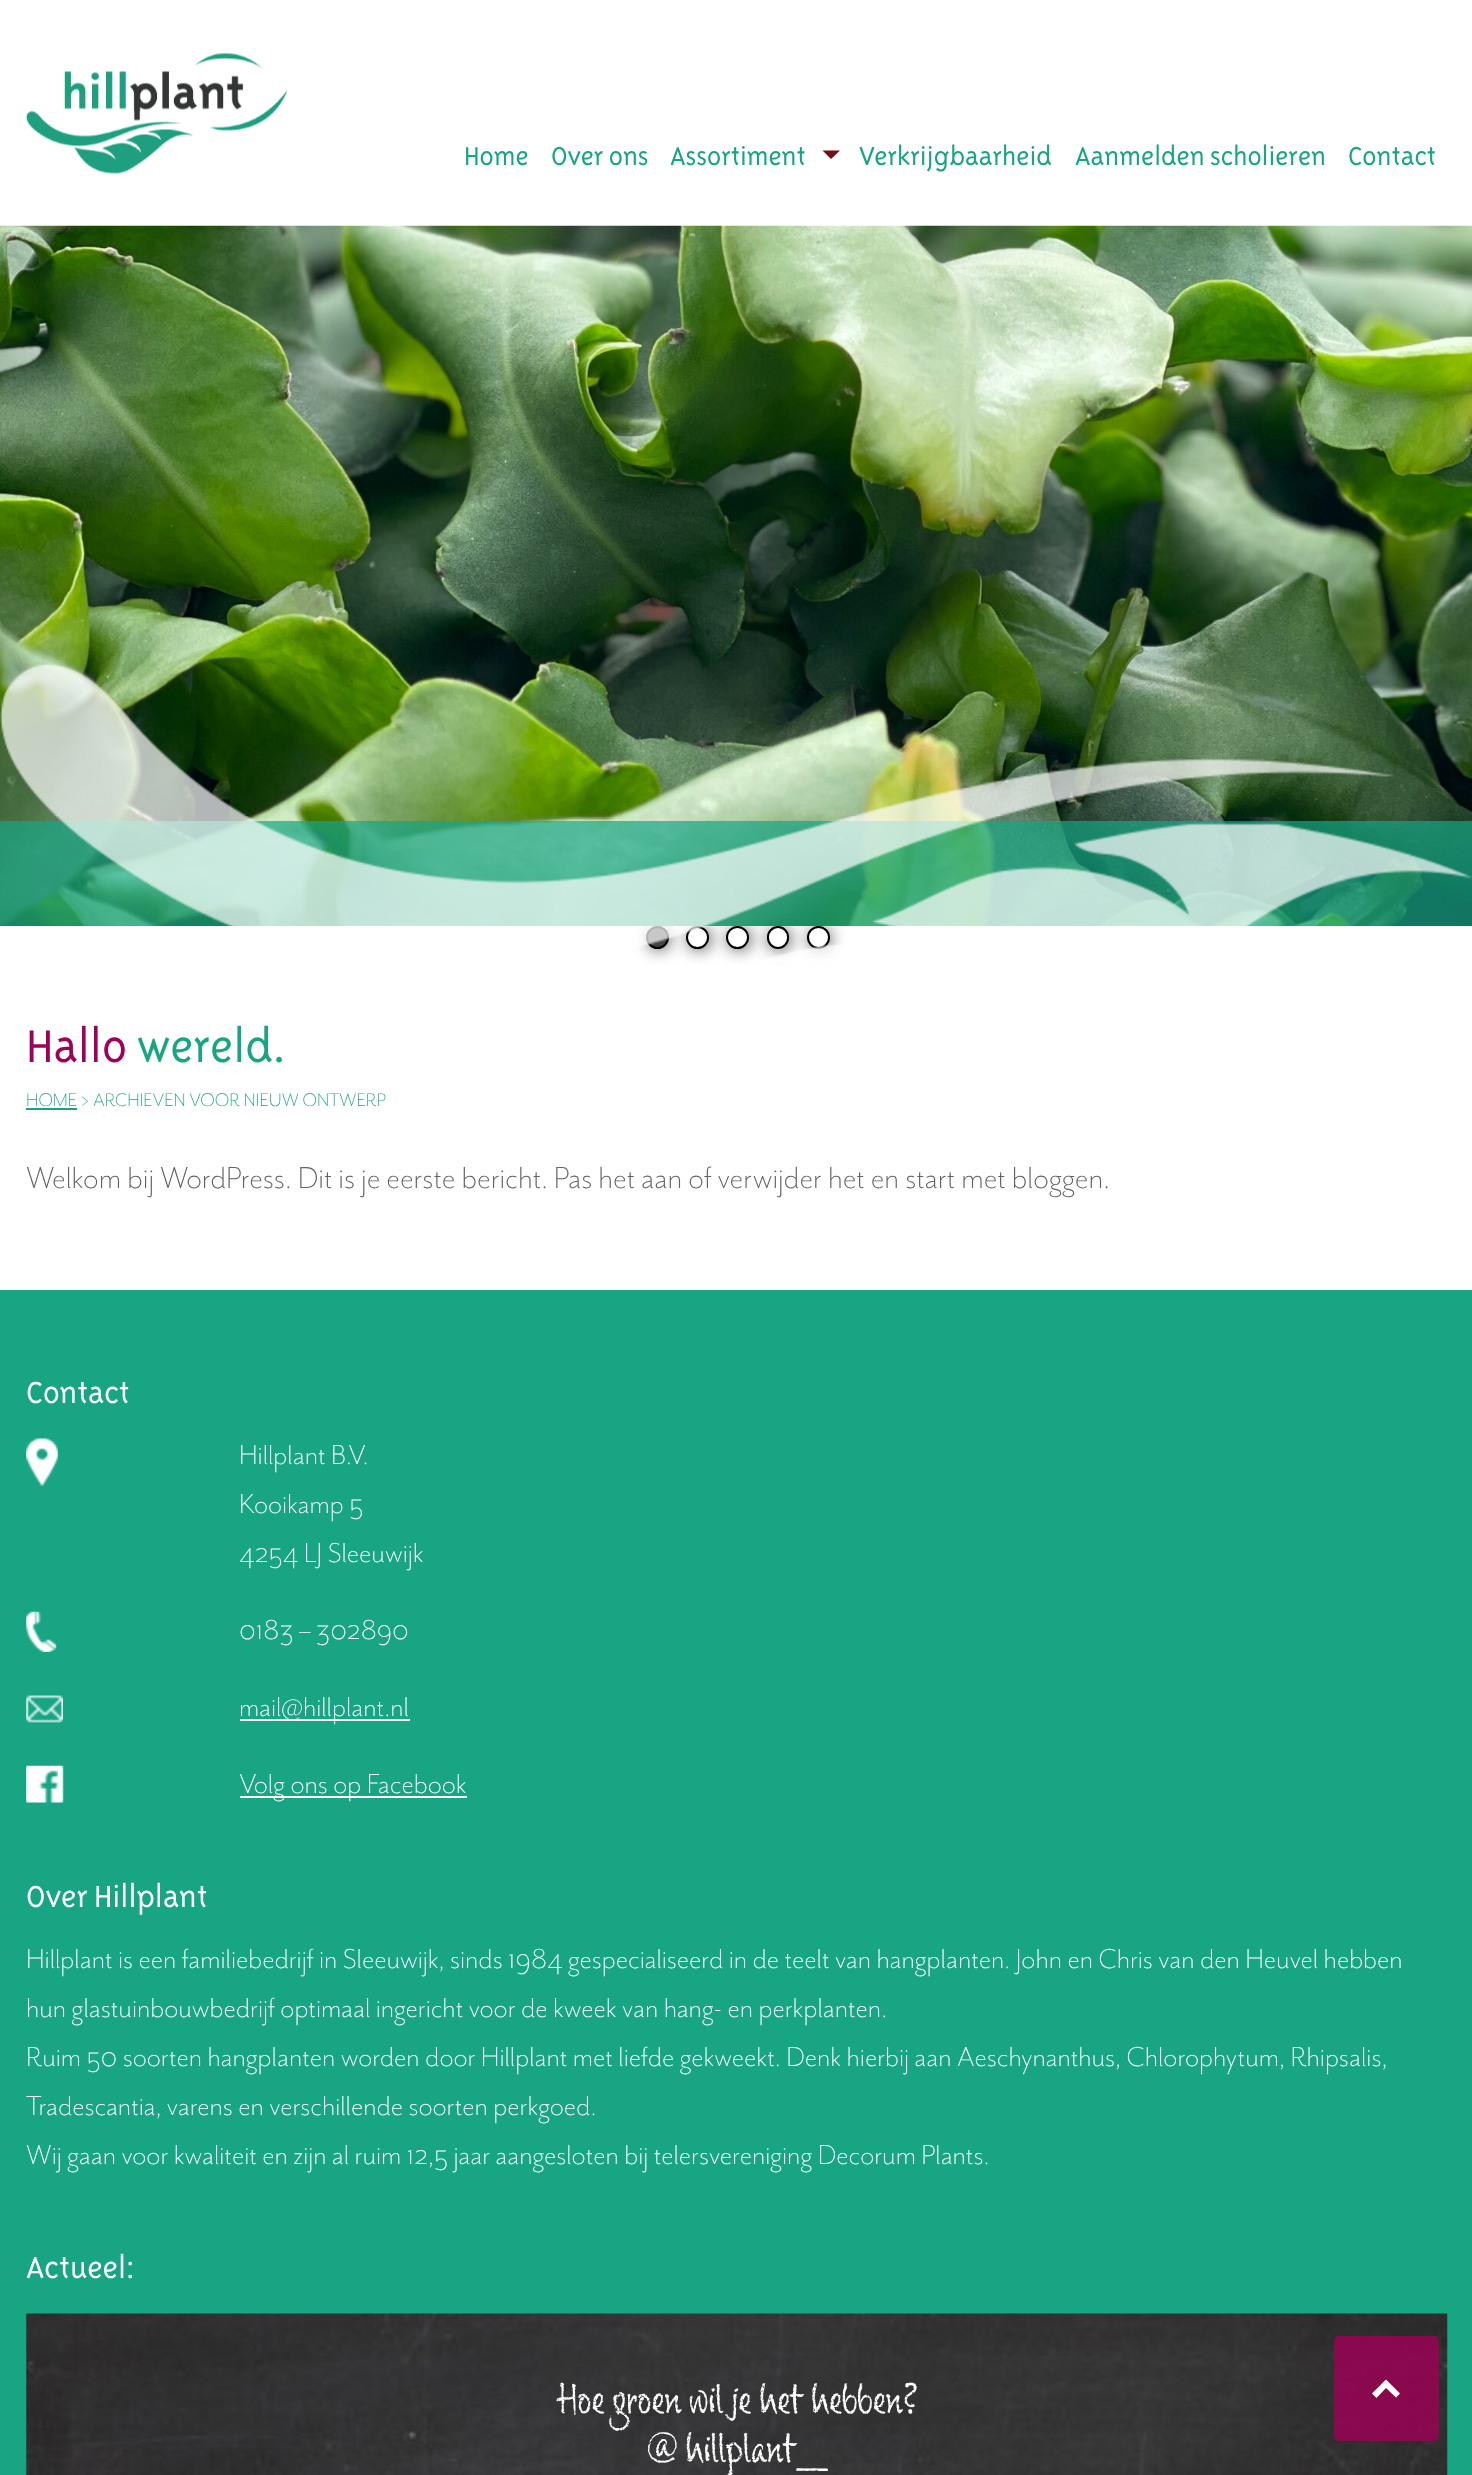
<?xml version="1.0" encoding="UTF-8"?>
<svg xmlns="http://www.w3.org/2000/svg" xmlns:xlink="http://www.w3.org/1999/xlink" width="1472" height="2475">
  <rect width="100%" height="100%" fill="#ffffff" />
  <image x="26" y="53" width="262" height="121" xlink:href="image1.png" />
  <path d="M 822.5 150.5 h 17.5 l -9 8.5 z" fill="#760a16" />
  <rect x="648" y="928" width="22" height="22" rx="11" fill="#000000" fill-opacity="0.66" filter="blur(8px)" />
  <circle cx="657.5" cy="937.5" r="10.5" fill="#444444" stroke="#000000" stroke-width="2" />
  <rect x="688" y="928" width="23" height="22" rx="11" fill="#000000" fill-opacity="0.66" filter="blur(8px)" />
  <circle cx="697.5" cy="937.5" r="10.5" fill="#ffffff" stroke="#000000" stroke-width="2" />
  <rect x="728" y="928" width="23" height="22" rx="11" fill="#000000" fill-opacity="0.66" filter="blur(8px)" />
  <circle cx="737.5" cy="937.5" r="10.5" fill="#ffffff" stroke="#000000" stroke-width="2" />
  <rect x="768" y="928" width="23" height="22" rx="11" fill="#000000" fill-opacity="0.66" filter="blur(8px)" />
  <rect x="768" y="927" width="20" height="21" rx="10" fill="#ffffff" stroke="#000000" stroke-width="2" />
  <rect x="809" y="928" width="22" height="22" rx="11" fill="#000000" fill-opacity="0.66" filter="blur(8px)" />
  <image x="0" y="225" width="1472" height="701" xlink:href="image2.png" />
  <circle cx="818.5" cy="937.5" r="10.5" fill="#ffffff" stroke="#000000" stroke-width="2" />
  <rect y="821" width="1472" height="105" fill="#18a584" fill-opacity="0.7" />
  <image x="0" y="664" width="1472" height="299" xlink:href="image3.png" />
  <rect x="26" y="1108" width="51" height="2" fill="#18a584" />
  <rect y="1290" width="1472" height="1185" fill="#18a584" />
  <rect x="240" y="1719" width="170" height="2" fill="#ffffff" />
  <rect x="240" y="1796" width="227" height="2" fill="#ffffff" />
  <image x="26" y="1438" width="32" height="49" xlink:href="image4.png" />
  <image x="26" y="1611" width="31" height="41" xlink:href="image5.png" />
  <image x="26" y="1695" width="37" height="28" xlink:href="image6.png" />
  <image x="26" y="1765" width="38" height="38" xlink:href="image7.png" />
  <image x="26" y="2313" width="1422" height="162" xlink:href="image8.png" />
  <rect x="1334" y="2336" width="105" height="105" rx="5" fill="#a00057" fill-opacity="0.8" />
  <path d="M 1386 2379.5 l 14 14 l -4 4 l -10 -9.5 l -9.5 10 l -4.5 -4.5 z" fill="#ffffff" />
  <text x="464" y="165" style="font-family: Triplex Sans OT; font-size: 29.75px; font-weight: 300; fill: #18a584">Home</text>
  <text x="551" y="165" style="font-family: Triplex Sans OT; font-size: 29.75px; font-weight: 300; fill: #18a584">Over ons</text>
  <text x="670" y="165" style="font-family: Triplex Sans OT; font-size: 29.75px; font-weight: 300; fill: #18a584">Assortiment</text>
  <text x="859" y="165" style="font-family: Triplex Sans OT; font-size: 29.75px; font-weight: 300; fill: #18a584">Verkrijgbaarheid</text>
  <text x="1075" y="165" style="font-family: Triplex Sans OT; font-size: 29.75px; font-weight: 300; fill: #18a584">Aanmelden scholieren</text>
  <text x="1348" y="165" style="font-family: Triplex Sans OT; font-size: 29.75px; font-weight: 300; fill: #18a584">Contact</text>
  <text x="26" y="1062" style="font-family: Triplex Sans OT; font-size: 52.5px; font-weight: 300; fill: #a00057">Hallo</text>
  <text x="137" y="1062" style="font-family: Triplex Sans OT; font-size: 52.5px; font-weight: 300; fill: #18a584">wereld.</text>
  <text x="26" y="1106" style="font-family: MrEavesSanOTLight; font-size: 21px; font-weight: 300; fill: #18a584">HOME &gt; ARCHIEVEN VOOR NIEUW ONTWERP</text>
  <text x="26" y="1188" style="font-family: MrEavesSanOTLight; font-size: 35px; font-weight: 300; fill: #626262">Welkom bij WordPress. Dit is je eerste bericht. Pas het aan of verwijder het en start met bloggen.</text>
  <text x="26" y="1403" style="font-family: Triplex Sans OT; font-size: 35px; font-weight: 300; fill: #ffffff">Contact</text>
  <text x="239" y="1464" style="font-family: MrEavesSanOTLight; font-size: 31.5px; font-weight: 300; fill: #ffffff">Hillplant B.V.</text>
  <text x="239" y="1513" style="font-family: MrEavesSanOTLight; font-size: 31.5px; font-weight: 300; fill: #ffffff">Kooikamp 5</text>
  <text x="239" y="1562" style="font-family: MrEavesSanOTLight; font-size: 31.5px; font-weight: 300; fill: #ffffff">4254 LJ Sleeuwijk</text>
  <text x="239" y="1639" style="font-family: MrEavesSanOTLight; font-size: 31.5px; font-weight: 300; fill: #ffffff">0183 – 302890</text>
  <text x="239" y="1716" style="font-family: MrEavesSanOTLight; font-size: 31.5px; font-weight: 300; fill: #ffffff">mail@hillplant.nl</text>
  <text x="239" y="1793" style="font-family: MrEavesSanOTLight; font-size: 31.5px; font-weight: 300; fill: #ffffff">Volg ons op Facebook</text>
  <text x="26" y="1907" style="font-family: Triplex Sans OT; font-size: 35px; font-weight: 300; fill: #ffffff">Over Hillplant</text>
  <text x="26" y="1968" style="font-family: MrEavesSanOTLight; font-size: 31.5px; font-weight: 300; fill: #ffffff">Hillplant is een familiebedrijf in Sleeuwijk, sinds 1984 gespecialiseerd in de teelt van hangplanten. John en Chris van den Heuvel hebben</text>
  <text x="26" y="2017" style="font-family: MrEavesSanOTLight; font-size: 31.5px; font-weight: 300; fill: #ffffff">hun glastuinbouwbedrijf optimaal ingericht voor de kweek van hang- en perkplanten.</text>
  <text x="26" y="2066" style="font-family: MrEavesSanOTLight; font-size: 31.5px; font-weight: 300; fill: #ffffff">Ruim 50 soorten hangplanten worden door Hillplant met liefde gekweekt. Denk hierbij aan Aeschynanthus, Chlorophytum, Rhipsalis,</text>
  <text x="26" y="2115" style="font-family: MrEavesSanOTLight; font-size: 31.5px; font-weight: 300; fill: #ffffff">Tradescantia, varens en verschillende soorten perkgoed.</text>
  <text x="26" y="2164" style="font-family: MrEavesSanOTLight; font-size: 31.5px; font-weight: 300; fill: #ffffff">Wij gaan voor kwaliteit en zijn al ruim 12,5 jaar aangesloten bij telersvereniging Decorum Plants.</text>
  <text x="26" y="2278" style="font-family: Triplex Sans OT; font-size: 35px; font-weight: 300; fill: #ffffff">Actueel:</text>
  <text x="556" y="2413" style="font-family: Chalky; font-size: 42px; fill: #ffffff">Hoe groen wil je het hebben?</text>
  <text x="646" y="2462" style="font-family: Chalky; font-size: 42px; fill: #ffffff">@hillplant_</text>
</svg>
